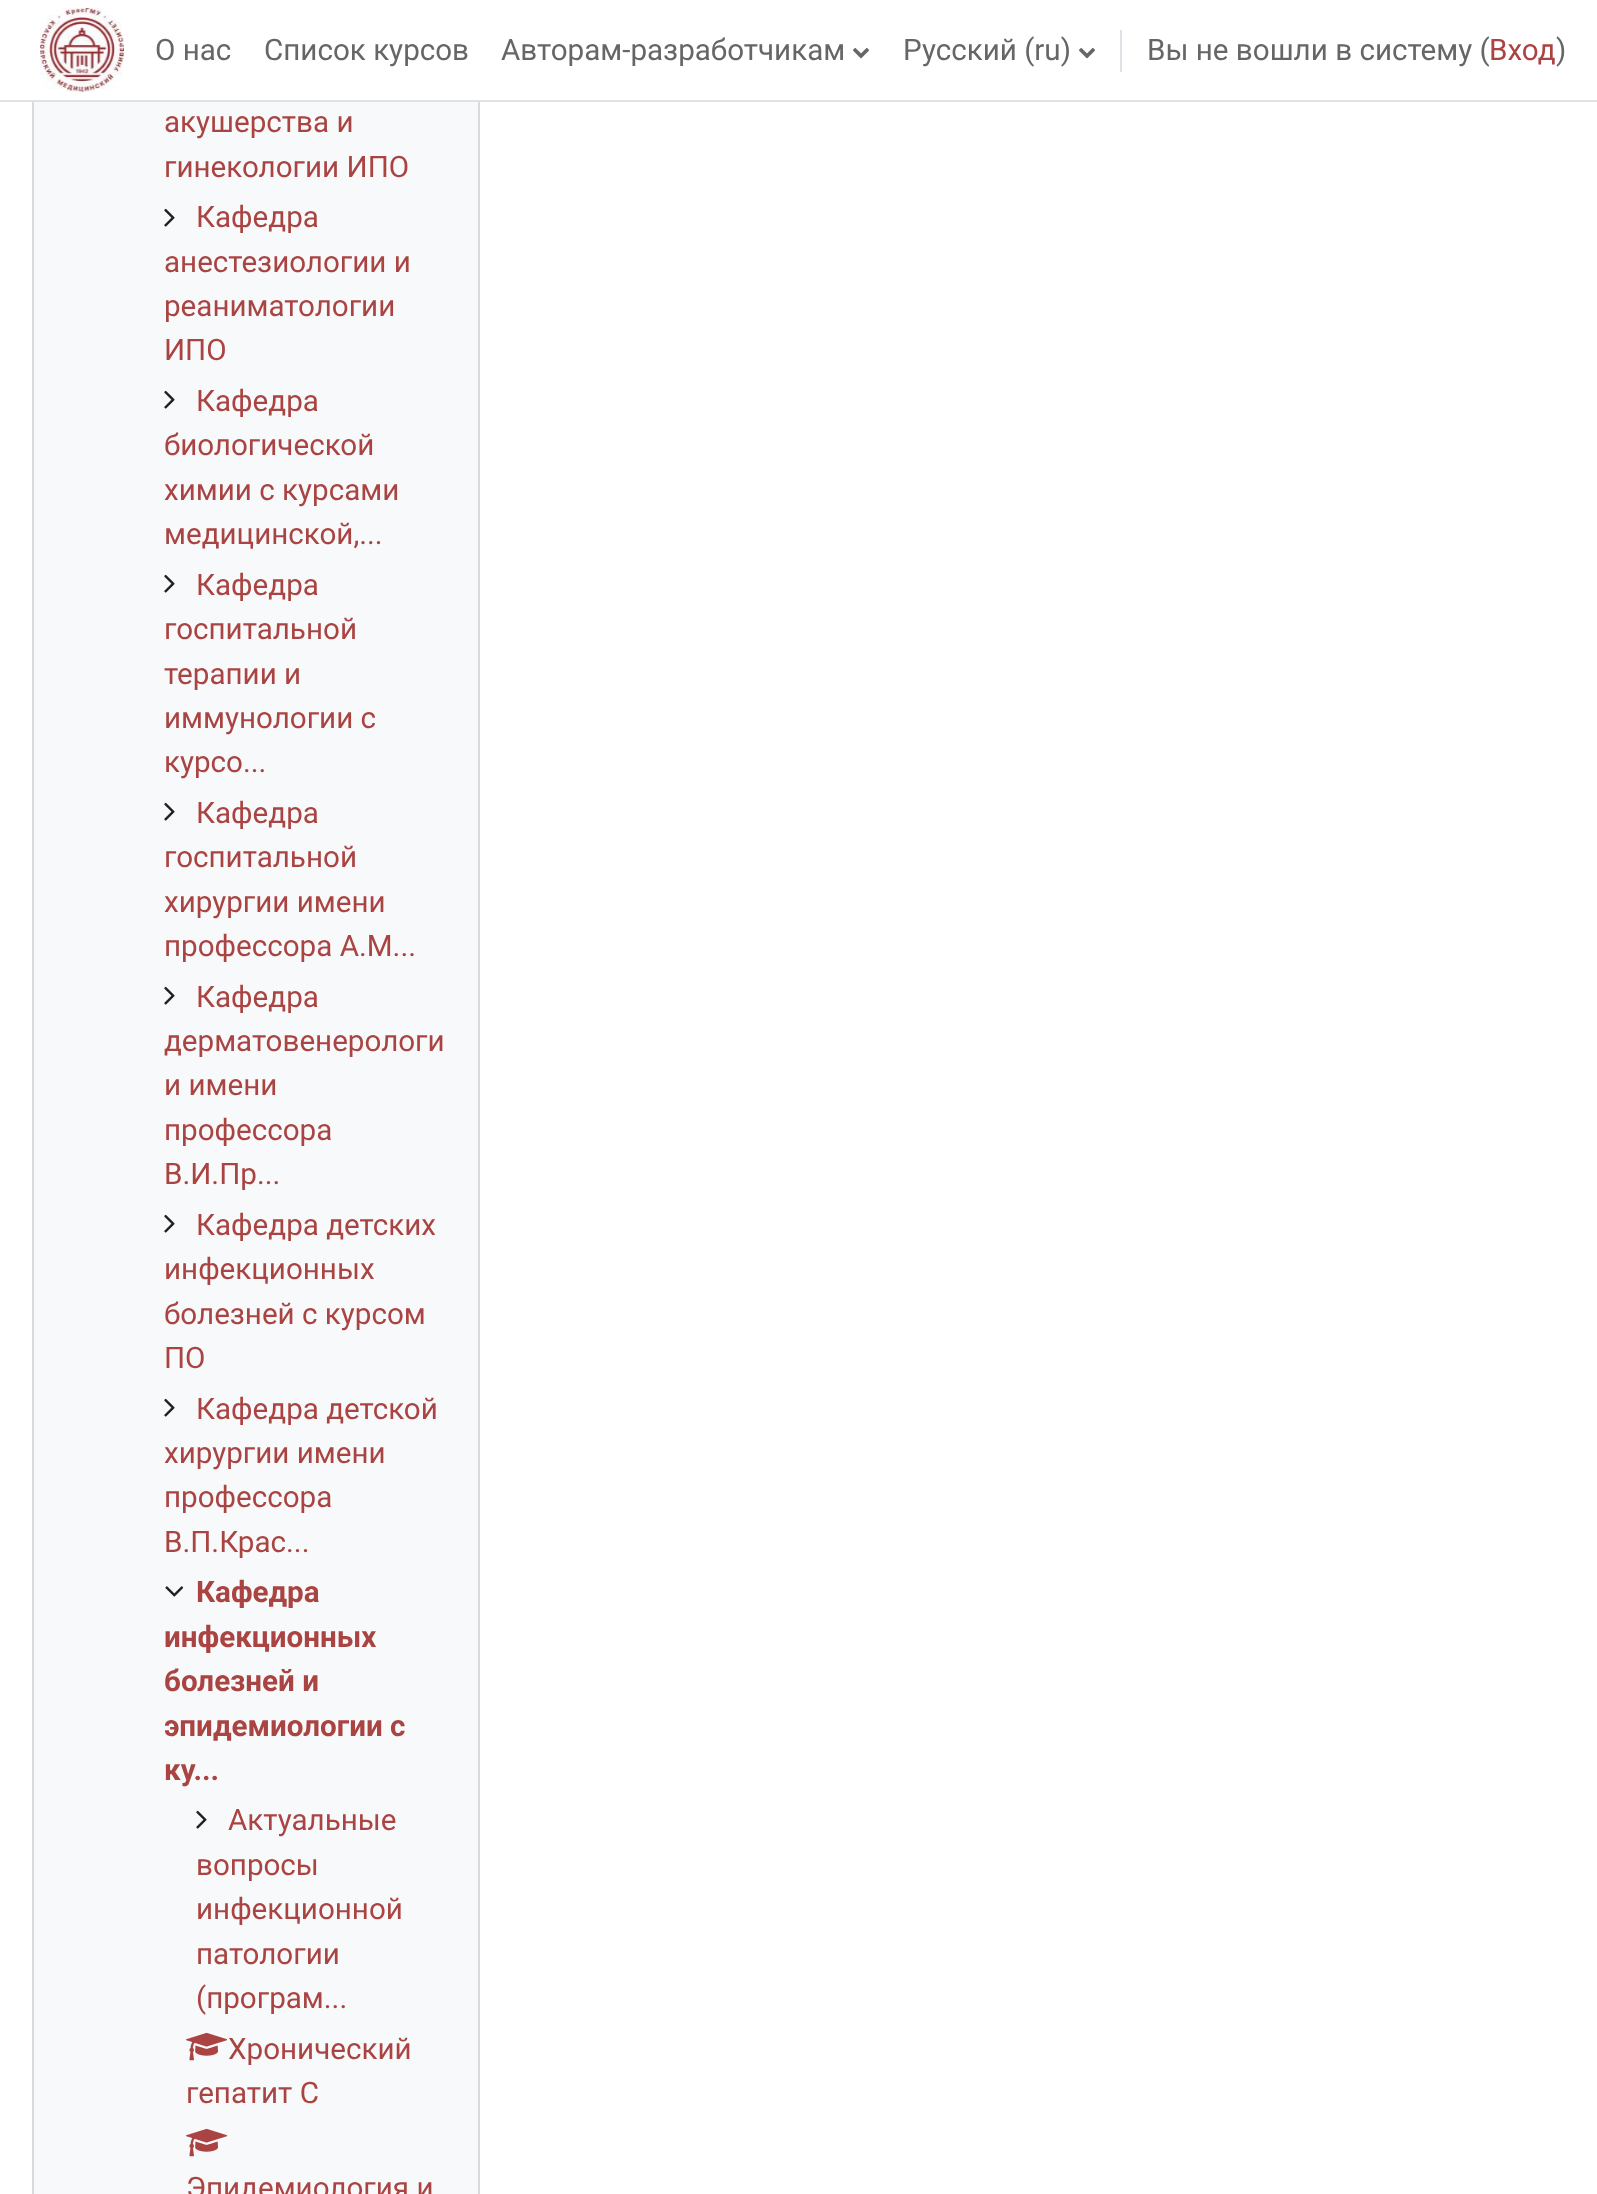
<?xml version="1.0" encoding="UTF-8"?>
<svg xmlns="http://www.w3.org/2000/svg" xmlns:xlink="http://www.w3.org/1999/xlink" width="1597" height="2194">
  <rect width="100%" height="100%" fill="#ffffff" />
  <rect x="34" y="102" width="444" height="2092" fill="#f8f9fa" />
  <rect x="33" y="-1" width="446" height="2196" fill="none" stroke="#d9dadb" stroke-width="2" />
  <rect x="32" width="448" height="100" fill="#ffffff" />
  <rect y="100" width="1597" height="2" fill="#dee2e6" />
  <image x="40" y="8" width="84" height="84" xlink:href="image1.png" />
  <image x="853" y="48" width="16" height="11" xlink:href="image2.png" />
  <image x="1079" y="48" width="16" height="11" xlink:href="image2.png" />
  <rect x="1120" y="30" width="2" height="42" fill="#dee2e6" />
  <image x="164" y="208" width="11" height="19" xlink:href="image3.png" />
  <image x="164" y="390" width="11" height="19" xlink:href="image3.png" />
  <image x="164" y="574" width="11" height="19" xlink:href="image3.png" />
  <image x="164" y="802" width="11" height="19" xlink:href="image3.png" />
  <image x="164" y="986" width="11" height="19" xlink:href="image3.png" />
  <image x="164" y="1214" width="11" height="19" xlink:href="image3.png" />
  <image x="164" y="1398" width="11" height="19" xlink:href="image3.png" />
  <image x="165" y="1586" width="19" height="11" xlink:href="image4.png" />
  <image x="196" y="1810" width="11" height="19" xlink:href="image3.png" />
  <image x="186" y="2032" width="42" height="29" xlink:href="image5.png" />
  <image x="186" y="2128" width="42" height="29" xlink:href="image5.png" />
  <text x="155" y="60" style="font-family: Roboto; font-size: 29.6px; fill: #666666">О нас</text>
  <text x="264" y="60" style="font-family: Roboto; font-size: 29.6px; fill: #666666">Список курсов</text>
  <text x="501" y="60" style="font-family: Roboto; font-size: 29.6px; fill: #666666">Авторам-разработчикам</text>
  <text x="903" y="60" style="font-family: Roboto; font-size: 29.6px; fill: #666666">Русский (ru)</text>
  <text x="1147" y="60" style="font-family: Roboto; font-size: 29.6px; fill: #666666">Вы не вошли в систему (</text>
  <text x="1489" y="60" style="font-family: Roboto; font-size: 29.6px; fill: #a94442">Вход</text>
  <text x="1556" y="60" style="font-family: Roboto; font-size: 29.6px; fill: #666666">)</text>
  <text x="164" y="132" style="font-family: Roboto; font-size: 29.6px; fill: #a94442">акушерства и</text>
  <text x="164" y="177" style="font-family: Roboto; font-size: 29.6px; fill: #a94442">гинекологии ИПО</text>
  <text x="196" y="227" style="font-family: Roboto; font-size: 29.6px; fill: #a94442">Кафедра</text>
  <text x="164" y="272" style="font-family: Roboto; font-size: 29.6px; fill: #a94442">анестезиологии и</text>
  <text x="164" y="316" style="font-family: Roboto; font-size: 29.6px; fill: #a94442">реаниматологии</text>
  <text x="164" y="360" style="font-family: Roboto; font-size: 29.6px; fill: #a94442">ИПО</text>
  <text x="196" y="411" style="font-family: Roboto; font-size: 29.6px; fill: #a94442">Кафедра</text>
  <text x="164" y="455" style="font-family: Roboto; font-size: 29.6px; fill: #a94442">биологической</text>
  <text x="164" y="500" style="font-family: Roboto; font-size: 29.6px; fill: #a94442">химии с курсами</text>
  <text x="164" y="544" style="font-family: Roboto; font-size: 29.6px; fill: #a94442">медицинской,...</text>
  <text x="196" y="595" style="font-family: Roboto; font-size: 29.6px; fill: #a94442">Кафедра</text>
  <text x="164" y="639" style="font-family: Roboto; font-size: 29.6px; fill: #a94442">госпитальной</text>
  <text x="164" y="684" style="font-family: Roboto; font-size: 29.6px; fill: #a94442">терапии и</text>
  <text x="164" y="728" style="font-family: Roboto; font-size: 29.6px; fill: #a94442">иммунологии с</text>
  <text x="164" y="772" style="font-family: Roboto; font-size: 29.6px; fill: #a94442">курсо...</text>
  <text x="196" y="823" style="font-family: Roboto; font-size: 29.6px; fill: #a94442">Кафедра</text>
  <text x="164" y="867" style="font-family: Roboto; font-size: 29.6px; fill: #a94442">госпитальной</text>
  <text x="164" y="912" style="font-family: Roboto; font-size: 29.6px; fill: #a94442">хирургии имени</text>
  <text x="164" y="956" style="font-family: Roboto; font-size: 29.6px; fill: #a94442">профессора А.М...</text>
  <text x="196" y="1007" style="font-family: Roboto; font-size: 29.6px; fill: #a94442">Кафедра</text>
  <text x="164" y="1051" style="font-family: Roboto; font-size: 29.6px; fill: #a94442">дерматовенерологи</text>
  <text x="164" y="1095" style="font-family: Roboto; font-size: 29.6px; fill: #a94442">и имени</text>
  <text x="164" y="1140" style="font-family: Roboto; font-size: 29.6px; fill: #a94442">профессора</text>
  <text x="164" y="1184" style="font-family: Roboto; font-size: 29.6px; fill: #a94442">В.И.Пр...</text>
  <text x="196" y="1235" style="font-family: Roboto; font-size: 29.6px; fill: #a94442">Кафедра детских</text>
  <text x="164" y="1279" style="font-family: Roboto; font-size: 29.6px; fill: #a94442">инфекционных</text>
  <text x="164" y="1324" style="font-family: Roboto; font-size: 29.6px; fill: #a94442">болезней с курсом</text>
  <text x="164" y="1368" style="font-family: Roboto; font-size: 29.6px; fill: #a94442">ПО</text>
  <text x="196" y="1419" style="font-family: Roboto; font-size: 29.6px; fill: #a94442">Кафедра детской</text>
  <text x="164" y="1463" style="font-family: Roboto; font-size: 29.6px; fill: #a94442">хирургии имени</text>
  <text x="164" y="1507" style="font-family: Roboto; font-size: 29.6px; fill: #a94442">профессора</text>
  <text x="164" y="1552" style="font-family: Roboto; font-size: 29.6px; fill: #a94442">В.П.Крас...</text>
  <text x="196" y="1602" style="font-family: Roboto; font-size: 29.6px; font-weight: bold; fill: #a94442">Кафедра</text>
  <text x="164" y="1647" style="font-family: Roboto; font-size: 29.6px; font-weight: bold; fill: #a94442">инфекционных</text>
  <text x="164" y="1691" style="font-family: Roboto; font-size: 29.6px; font-weight: bold; fill: #a94442">болезней и</text>
  <text x="164" y="1736" style="font-family: Roboto; font-size: 29.6px; font-weight: bold; fill: #a94442">эпидемиологии с</text>
  <text x="164" y="1780" style="font-family: Roboto; font-size: 29.6px; font-weight: bold; fill: #a94442">ку...</text>
  <text x="228" y="1830" style="font-family: Roboto; font-size: 29.6px; fill: #a94442">Актуальные</text>
  <text x="196" y="1875" style="font-family: Roboto; font-size: 29.6px; fill: #a94442">вопросы</text>
  <text x="196" y="1919" style="font-family: Roboto; font-size: 29.6px; fill: #a94442">инфекционной</text>
  <text x="196" y="1964" style="font-family: Roboto; font-size: 29.6px; fill: #a94442">патологии</text>
  <text x="196" y="2008" style="font-family: Roboto; font-size: 29.6px; fill: #a94442">(програм...</text>
  <text x="228" y="2059" style="font-family: Roboto; font-size: 29.6px; fill: #a94442">Хронический</text>
  <text x="186" y="2103" style="font-family: Roboto; font-size: 29.6px; fill: #a94442">гепатит С</text>
  <text x="186" y="2198" style="font-family: Roboto; font-size: 29.6px; fill: #a94442">Эпидемиология и</text>
</svg>
